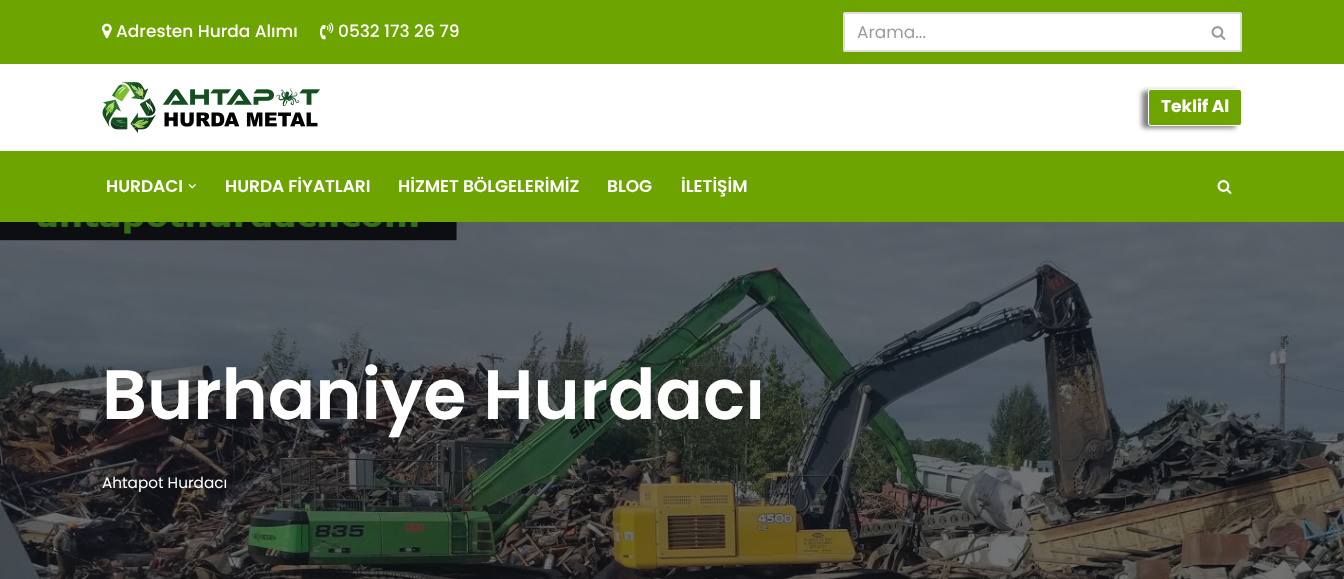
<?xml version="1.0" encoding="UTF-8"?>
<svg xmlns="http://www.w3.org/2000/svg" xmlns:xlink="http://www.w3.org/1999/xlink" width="1344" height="579">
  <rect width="100%" height="100%" fill="#ffffff" />
  <rect width="1344" height="64" fill="#6da400" />
  <image x="102" y="23" width="10" height="16" xlink:href="image1.png" />
  <image x="320" y="22" width="14" height="18" xlink:href="image2.png" />
  <path d="M 845 12 h 352 v 40 h -352 c -1 0 -2 -1 -2 -2 v -36 c 0 -1 1 -2 2 -2 z" fill="#ffffff" />
  <rect x="844" y="12" width="353" height="2" fill="#dddddd" />
  <rect x="844" y="50" width="353" height="2" fill="#dddddd" />
  <rect x="843" y="13" width="2" height="38" fill="#dddddd" />
  <path d="M 1197 12 h 43 c 1 0 2 1 2 2 v 36 c 0 1 -1 2 -2 2 h -43 z" fill="#ffffff" />
  <rect x="1197" y="12" width="44" height="2" fill="#dddddd" />
  <rect x="1240" y="13" width="2" height="38" fill="#dddddd" />
  <rect x="1197" y="50" width="44" height="2" fill="#dddddd" />
  <image x="1211" y="26" width="15" height="14" xlink:href="image3.png" />
  <image x="102" y="82" width="218" height="51" xlink:href="image4.png" />
  <rect x="1142" y="91" width="94" height="37" rx="3" fill="#000000" fill-opacity="0.5" filter="blur(2.5px)" />
  <rect x="1148.5" y="89.5" width="93" height="36" rx="2.5" fill="#6da400" stroke="#ffffff" />
  <rect y="151" width="1344" height="71" fill="#6da400" />
  <image x="188" y="184" width="8" height="5" xlink:href="image5.png" />
  <image x="1217" y="180" width="15" height="14" xlink:href="image6.png" />
  <image x="0" y="222" width="1344" height="357" xlink:href="image7.png" />
  <text x="116" y="37" style="font-family: Poppins; font-size: 17px; font-weight: 500; fill: #ffffff">Adresten Hurda Alımı</text>
  <text x="338" y="37" style="font-family: Poppins; font-size: 17px; font-weight: 500; fill: #ffffff">0532 173 26 79</text>
  <text x="857" y="38" style="font-family: Poppins; font-size: 17px; fill: #9c9c9c">Arama...</text>
  <text x="1161" y="112" style="font-family: Poppins; font-size: 17px; font-weight: bold; fill: #ffffff">Teklif Al</text>
  <text x="106" y="192" style="font-family: Poppins; font-size: 17px; font-weight: 600; fill: #ffffff">HURDACI</text>
  <text x="225" y="192" style="font-family: Poppins; font-size: 17px; font-weight: 600; fill: #ffffff">HURDA FİYATLARI</text>
  <text x="398" y="192" style="font-family: Poppins; font-size: 17px; font-weight: 600; fill: #ffffff">HİZMET BÖLGELERİMİZ</text>
  <text x="607" y="192" style="font-family: Poppins; font-size: 17px; font-weight: 600; fill: #ffffff">BLOG</text>
  <text x="681" y="192" style="font-family: Poppins; font-size: 17px; font-weight: 600; fill: #ffffff">İLETİŞİM</text>
  <text x="102" y="419" style="font-family: Poppins; font-size: 70px; font-weight: 600; fill: #ffffff">Burhaniye Hurdacı</text>
  <text x="102" y="488" style="font-family: Poppins; font-size: 15.25px; fill: #ffffff">Ahtapot Hurdacı</text>
</svg>
